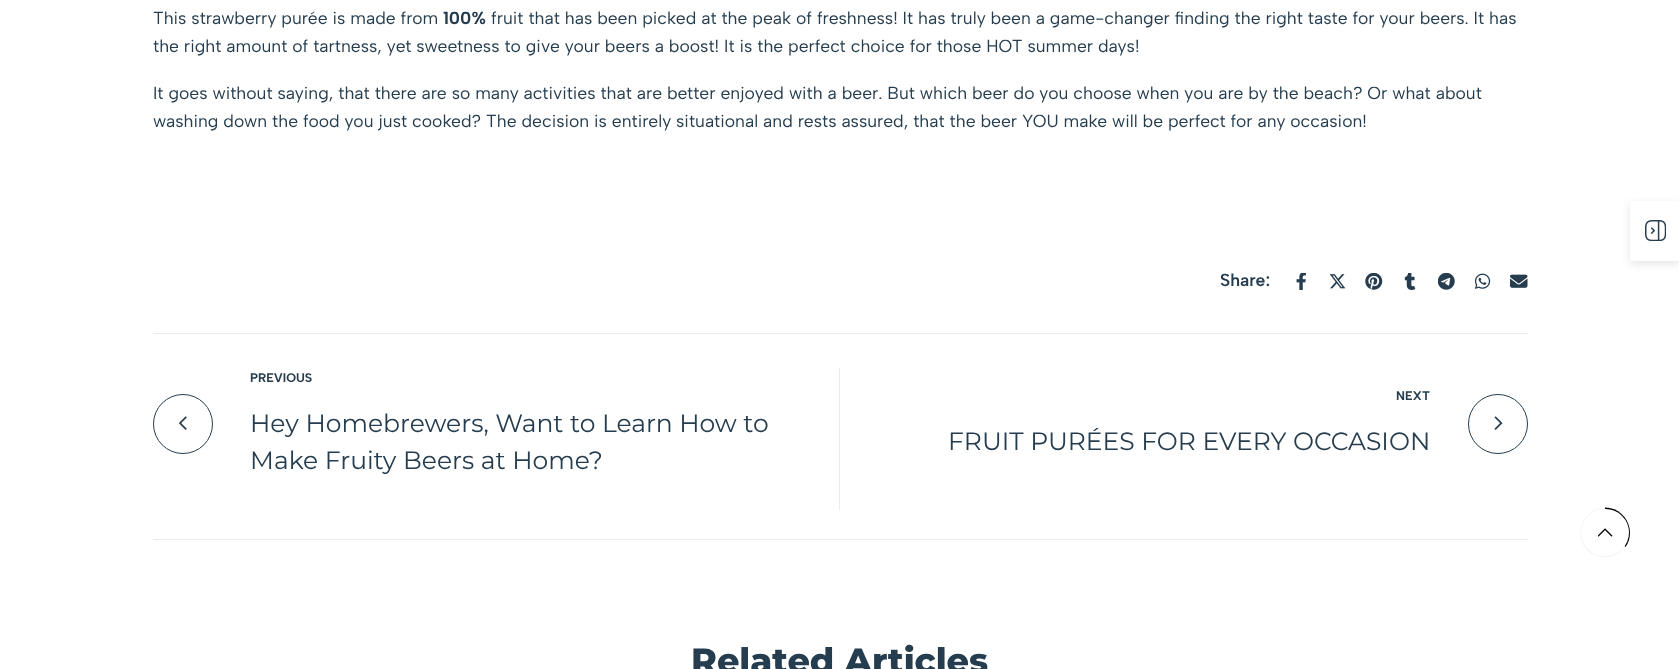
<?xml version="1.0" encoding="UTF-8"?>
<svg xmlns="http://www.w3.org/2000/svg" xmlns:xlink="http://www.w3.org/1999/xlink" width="1679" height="669">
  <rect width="100%" height="100%" fill="#ffffff" />
  <image x="1296" y="273" width="10" height="17" xlink:href="image1.png" />
  <image x="1329" y="274" width="17" height="15" xlink:href="image2.png" />
  <image x="1365" y="273" width="18" height="17" xlink:href="image3.png" />
  <image x="1404" y="273" width="12" height="17" xlink:href="image4.png" />
  <image x="1438" y="273" width="17" height="17" xlink:href="image5.png" />
  <image x="1474" y="273" width="17" height="16" xlink:href="image6.png" />
  <image x="1510" y="274" width="18" height="14" xlink:href="image7.png" />
  <rect x="153" y="333" width="1375" height="1" fill="#ebebeb" />
  <rect x="153" y="539" width="1375" height="1" fill="#ebebeb" />
  <circle cx="183" cy="424" r="29.5" fill="none" stroke="#253d4e" />
  <image x="179" y="416" width="8" height="14" xlink:href="image8.png" />
  <rect x="839" y="368" width="1" height="142" fill="#ebebeb" />
  <circle cx="1498" cy="424" r="29.5" fill="none" stroke="#253d4e" />
  <image x="1494" y="416" width="9" height="14" xlink:href="image9.png" />
  <rect x="1630" y="204" width="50" height="60" fill="#000000" fill-opacity="0.1" filter="blur(4px)" />
  <rect x="1630" y="201" width="49" height="60" fill="#ffffff" />
  <image x="1645" y="220" width="21" height="21" xlink:href="image10.png" />
  <path d="M 1605 532.5 v -25 c 20 0 32 23 20.5 39.5 z" fill="#000000" />
  <path d="M 1605 532 l 20 15 c -7 10 -19 13 -30 8 c -11 -4 -17 -16 -14 -28 c 2 -11 12 -19 24 -19 z" fill="#f5f5f5" />
  <rect x="1581" y="509" width="48" height="47" rx="23.5" fill="#ffffff" />
  <image x="1598" y="528" width="15" height="9" xlink:href="image11.png" />
  <text x="153" y="24" style="font-family: Albert Sans; font-size: 17.5px; fill: #253d4e">This strawberry purée is made from</text>
  <text x="443" y="24" style="font-family: Albert Sans; font-size: 17.5px; font-weight: bold; fill: #253d4e">100%</text>
  <text x="491" y="24" style="font-family: Albert Sans; font-size: 17.5px; fill: #253d4e">fruit that has been picked at the peak of freshness! It has truly been a game-changer finding the right taste for your beers. It has</text>
  <text x="153" y="52" style="font-family: Albert Sans; font-size: 17.5px; fill: #253d4e">the right amount of tartness, yet sweetness to give your beers a boost! It is the perfect choice for those HOT summer days!</text>
  <text x="153" y="99" style="font-family: Albert Sans; font-size: 17.5px; fill: #253d4e">It goes without saying, that there are so many activities that are better enjoyed with a beer. But which beer do you choose when you are by the beach? Or what about</text>
  <text x="153" y="127" style="font-family: Albert Sans; font-size: 17.5px; fill: #253d4e">washing down the food you just cooked? The decision is entirely situational and rests assured, that the beer YOU make will be perfect for any occasion!</text>
  <text x="1220" y="286" style="font-family: Albert Sans; font-size: 17.5px; font-weight: 600; fill: #253d4e">Share:</text>
  <text x="250" y="382" style="font-family: Albert Sans; font-size: 12.5px; font-weight: bold; fill: #253d4e">PREVIOUS</text>
  <text x="250" y="432" style="font-family: Montserrat; font-size: 25px; fill: #253d4e">Hey Homebrewers, Want to Learn How to</text>
  <text x="250" y="469" style="font-family: Montserrat; font-size: 25px; fill: #253d4e">Make Fruity Beers at Home?</text>
  <text x="1396" y="400" style="font-family: Albert Sans; font-size: 12.5px; font-weight: bold; fill: #253d4e">NEXT</text>
  <text x="948" y="450" style="font-family: Montserrat; font-size: 25px; fill: #253d4e">FRUIT PURÉES FOR EVERY OCCASION</text>
  <text x="691" y="673" style="font-family: Montserrat; font-size: 35px; font-weight: 800; fill: #253d4e">Related Articles</text>
</svg>
